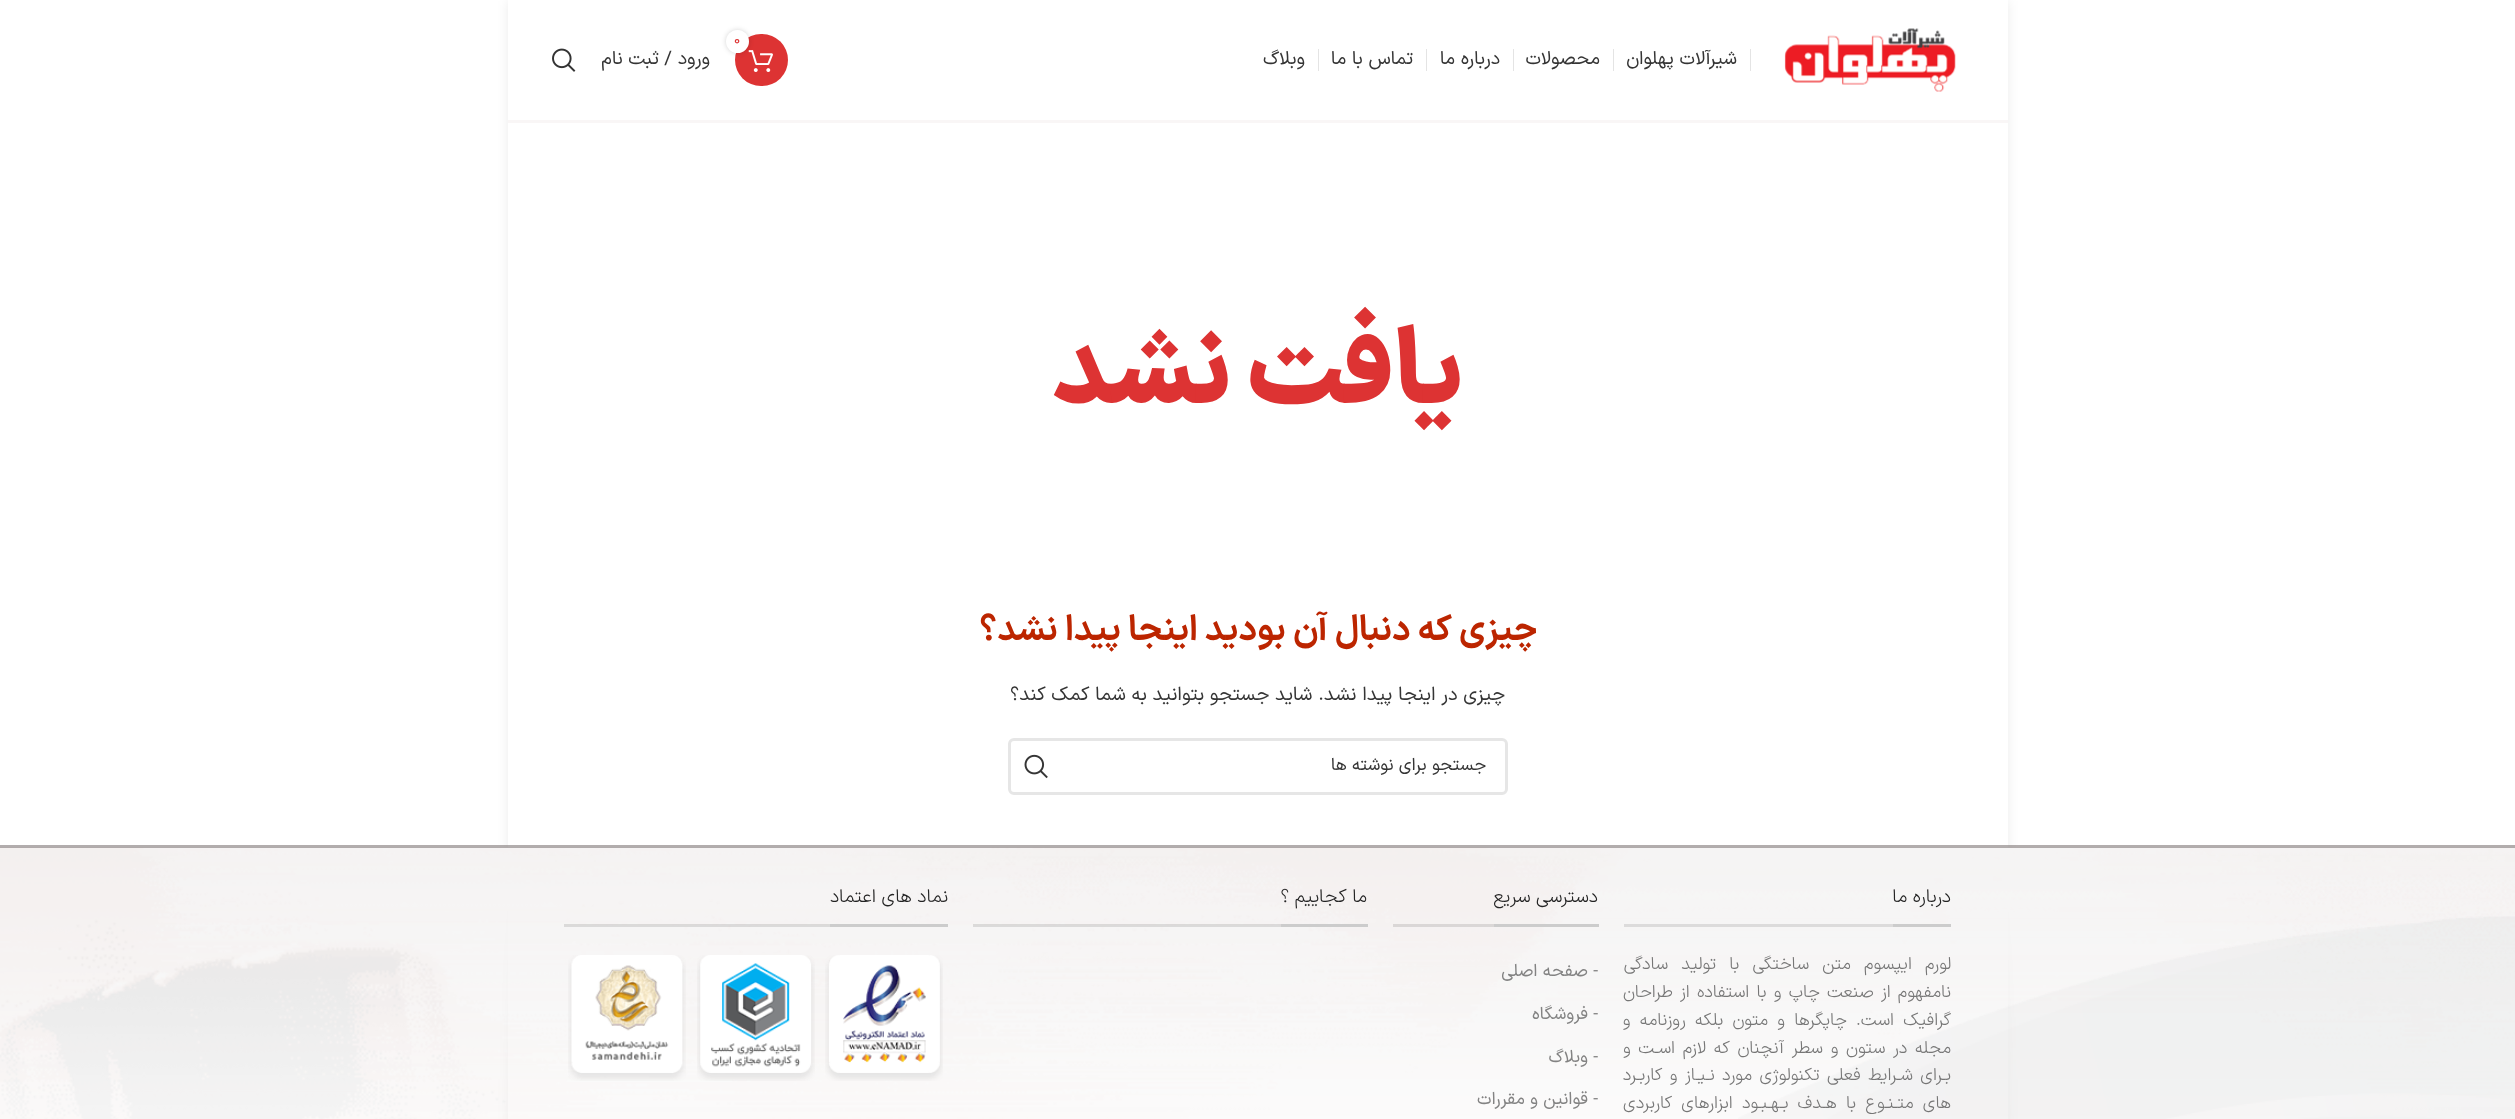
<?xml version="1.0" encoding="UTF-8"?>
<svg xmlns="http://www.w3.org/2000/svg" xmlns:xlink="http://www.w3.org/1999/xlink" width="2515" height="1119">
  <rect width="100%" height="100%" fill="#ffffff" />
  <rect x="508" y="1" width="1500" height="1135" fill="#000000" fill-opacity="0.08" filter="blur(5.5px)" />
  <rect x="508" width="1500" height="1119" fill="#ffffff" />
  <rect x="508" y="120" width="1500" height="3" fill="#f9f6f6" />
  <image x="1784" y="28" width="172" height="64" xlink:href="image1.png" />
  <rect x="1750" y="49" width="1" height="22" fill="#e4e4e4" />
  <rect x="1613" y="49" width="1" height="22" fill="#e4e4e4" />
  <rect x="1513" y="49" width="1" height="22" fill="#e4e4e4" />
  <rect x="1426" y="49" width="1" height="22" fill="#e4e4e4" />
  <rect x="1318" y="49" width="1" height="22" fill="#e4e4e4" />
  <rect x="735" y="34" width="53" height="52" rx="26" fill="#dd3333" />
  <image x="748" y="50" width="25" height="22" xlink:href="image2.png" />
  <rect x="726" y="30" width="23" height="23" rx="11.5" fill="#000000" fill-opacity="0.17" filter="blur(2.5px)" />
  <circle cx="737.5" cy="41.5" r="11.5" fill="#ffffff" />
  <image x="552" y="48" width="24" height="24" xlink:href="image3.png" />
  <rect x="1009.5" y="739.5" width="497" height="54" rx="4.5" fill="none" stroke="#e6e6e6" stroke-width="3" />
  <image x="1024" y="754" width="24" height="25" xlink:href="image4.png" />
  <image x="0" y="847" width="2515" height="272" xlink:href="image5.png" />
  <rect y="845" width="2515" height="3" fill="#898181" fill-opacity="0.65" />
  <image x="1738" y="916" width="777" height="203" xlink:href="image6.png" />
  <rect x="1624" y="924" width="269" height="3" fill="#dcdbdb" />
  <rect x="1893" y="924" width="58" height="3" fill="#cccccc" />
  <rect x="1393" y="924" width="101" height="3" fill="#000000" fill-opacity="0.11" />
  <rect x="1494" y="924" width="105" height="3" fill="#cccccc" />
  <rect x="973" y="924" width="308" height="3" fill="#000000" fill-opacity="0.11" />
  <rect x="1281" y="924" width="87" height="3" fill="#cccccc" />
  <rect x="564" y="924" width="266" height="3" fill="#000000" fill-opacity="0.11" />
  <rect x="830" y="924" width="118" height="3" fill="#cccccc" />
  <image x="825" y="955" width="118" height="126" xlink:href="image7.png" />
  <image x="697" y="955" width="118" height="126" xlink:href="image8.png" />
  <image x="568" y="955" width="118" height="126" xlink:href="image9.png" />
  <text x="1737" y="64" style="font-family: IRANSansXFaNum; font-size: 18.75px; direction: rtl; fill: #353535">شیرآلات پهلوان</text>
  <text x="1600" y="64" style="font-family: IRANSansXFaNum; font-size: 18.75px; direction: rtl; fill: #353535">محصولات</text>
  <text x="1500" y="64" style="font-family: IRANSansXFaNum; font-size: 18.75px; direction: rtl; fill: #353535">درباره ما</text>
  <text x="1413" y="64" style="font-family: IRANSansXFaNum; font-size: 18.75px; direction: rtl; fill: #353535">تماس با ما</text>
  <text x="1305" y="64" style="font-family: IRANSansXFaNum; font-size: 18.75px; direction: rtl; fill: #353535">وبلاگ</text>
  <text x="734" y="44" style="font-family: IRANSansXFaNum; font-size: 14px; fill: #dd3333">0</text>
  <text x="710" y="64" style="font-family: IRANSansXFaNum; font-size: 18.75px; direction: rtl; fill: #353535">ورود / ثبت نام</text>
  <text x="1464" y="403" style="font-family: IRANSansXFaNum; font-size: 102.5px; font-weight: 900; direction: rtl; fill: #dd3333">یافت نشد</text>
  <text x="1537" y="640" style="font-family: IRANSansXFaNum; font-size: 35px; font-weight: bold; direction: rtl; fill: #bc2500">چیزی که دنبال آن بودید اینجا پیدا نشد؟</text>
  <text x="1505" y="700" style="font-family: IRANSansXFaNum; font-size: 19.25px; direction: rtl; fill: #353535">چیزی در اینجا پیدا نشد. شاید جستجو بتوانید به شما کمک کند؟</text>
  <text x="1486" y="770" style="font-family: IRANSansXFaNum; font-size: 17.5px; direction: rtl; fill: #353535">جستجو برای نوشته ها</text>
  <text x="1951" y="902" style="font-family: IRANSansXFaNum; font-size: 18.75px; font-weight: 300; direction: rtl; fill: #242424">درباره ما</text>
  <text x="1951" y="969" word-spacing="8" style="font-family: IRANSansXFaNum; font-size: 17.5px; font-weight: 300; direction: rtl; fill: #767676">لورم ایپسوم متن ساختگی با تولید سادگی</text>
  <text x="1951" y="997" word-spacing="2" style="font-family: IRANSansXFaNum; font-size: 17.5px; font-weight: 300; direction: rtl; fill: #767676">نامفهوم از صنعت چاپ و با استفاده از طراحان</text>
  <text x="1951" y="1025" word-spacing="4" style="font-family: IRANSansXFaNum; font-size: 17.5px; font-weight: 300; direction: rtl; fill: #767676">گرافیک است. چاپگرها و متون بلکه روزنامه و</text>
  <text x="1951" y="1053" word-spacing="2.5" style="font-family: IRANSansXFaNum; font-size: 17.5px; font-weight: 300; direction: rtl; fill: #767676">مجله در ستون و سطر آنچنان که لازم اسـت و</text>
  <text x="1951" y="1080" word-spacing="2.25" style="font-family: IRANSansXFaNum; font-size: 17.5px; font-weight: 300; direction: rtl; fill: #767676">بـرای شـرایط فعلی تکنولوژی مورد نـیـاز و کاربـرد</text>
  <text x="1951" y="1108" word-spacing="4" style="font-family: IRANSansXFaNum; font-size: 17.5px; font-weight: 300; direction: rtl; fill: #767676">های متـنـوع با هـدف بـهـبـود ابزارهای کاربردی</text>
  <text x="1598" y="902" style="font-family: IRANSansXFaNum; font-size: 18.75px; font-weight: 300; direction: rtl; fill: #242424">دسترسی سریع</text>
  <text x="1598" y="976" style="font-family: IRANSansXFaNum; font-size: 17.5px; direction: rtl; fill: #838383">- صفحه اصلی</text>
  <text x="1598" y="1019" style="font-family: IRANSansXFaNum; font-size: 17.5px; direction: rtl; fill: #838383">- فروشگاه</text>
  <text x="1598" y="1062" style="font-family: IRANSansXFaNum; font-size: 17.5px; direction: rtl; fill: #838383">- وبلاگ</text>
  <text x="1598" y="1104" style="font-family: IRANSansXFaNum; font-size: 17.5px; direction: rtl; fill: #838383">- قوانین و مقررات</text>
  <text x="1367" y="902" style="font-family: IRANSansXFaNum; font-size: 18.75px; font-weight: 300; direction: rtl; fill: #242424">ما کجاییم ؟</text>
  <text x="948" y="902" style="font-family: IRANSansXFaNum; font-size: 18.75px; font-weight: 300; direction: rtl; fill: #242424">نماد های اعتماد</text>
</svg>
